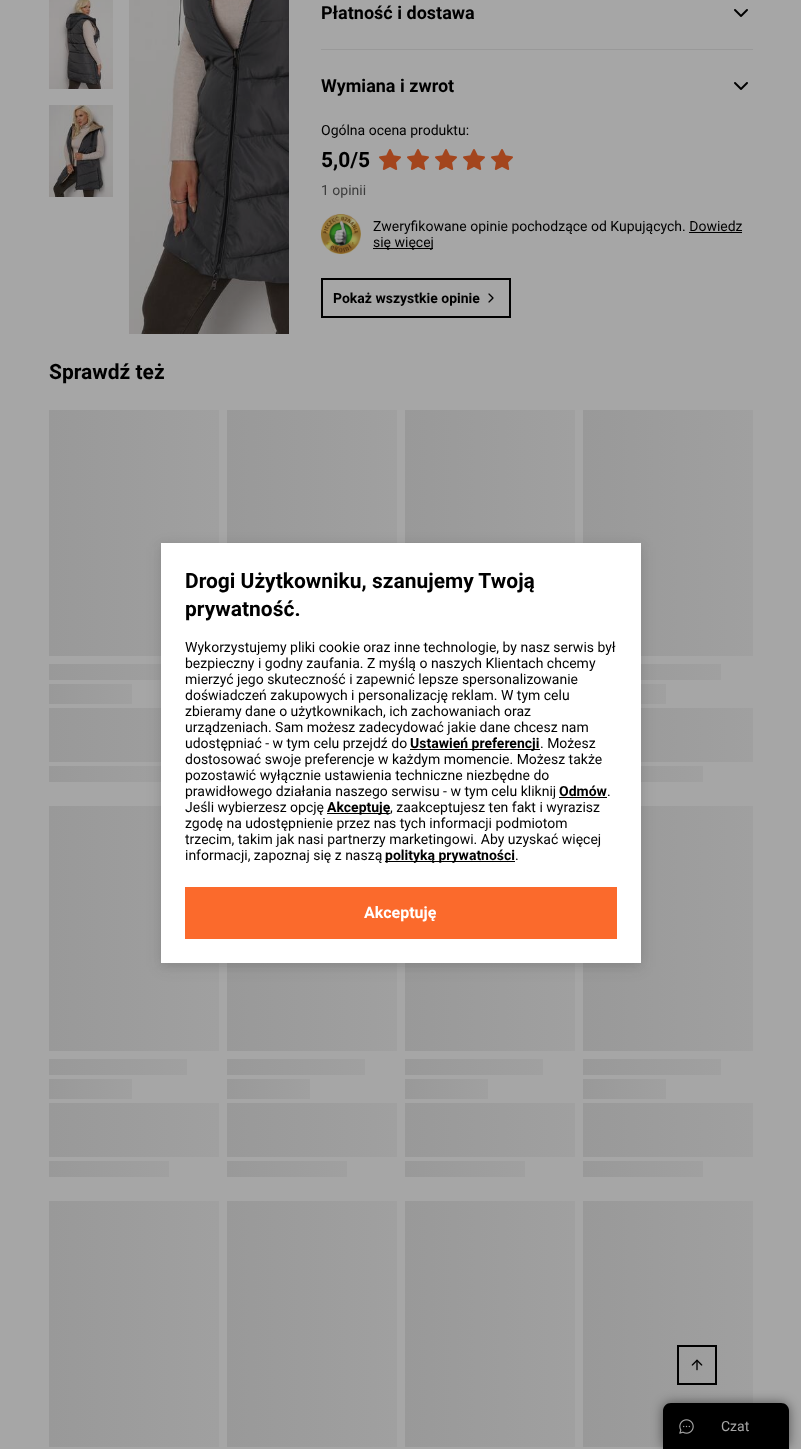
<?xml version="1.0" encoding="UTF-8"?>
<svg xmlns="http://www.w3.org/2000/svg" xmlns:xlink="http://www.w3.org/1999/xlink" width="801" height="1449">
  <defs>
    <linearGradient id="g1" gradientUnits="userSpaceOnUse" x1="49" y1="533" x2="219" y2="533"><stop offset="0" stop-color="#999999" /><stop offset="1" stop-color="#a0a0a0" /></linearGradient>
    <linearGradient id="g2" gradientUnits="userSpaceOnUse" x1="49" y1="672" x2="187" y2="672"><stop offset="0" stop-color="#999999" /><stop offset="1" stop-color="#a0a0a0" /></linearGradient>
    <linearGradient id="g3" gradientUnits="userSpaceOnUse" x1="49" y1="694" x2="132" y2="694"><stop offset="0" stop-color="#999999" /><stop offset="1" stop-color="#a0a0a0" /></linearGradient>
    <linearGradient id="g4" gradientUnits="userSpaceOnUse" x1="49" y1="735" x2="219" y2="735"><stop offset="0" stop-color="#999999" /><stop offset="1" stop-color="#a0a0a0" /></linearGradient>
    <linearGradient id="g5" gradientUnits="userSpaceOnUse" x1="49" y1="774" x2="169" y2="774"><stop offset="0" stop-color="#999999" /><stop offset="1" stop-color="#a0a0a0" /></linearGradient>
    <linearGradient id="g6" gradientUnits="userSpaceOnUse" x1="227" y1="533" x2="397" y2="533"><stop offset="0" stop-color="#999999" /><stop offset="1" stop-color="#a0a0a0" /></linearGradient>
    <linearGradient id="g7" gradientUnits="userSpaceOnUse" x1="405" y1="533" x2="575" y2="533"><stop offset="0" stop-color="#999999" /><stop offset="1" stop-color="#a0a0a0" /></linearGradient>
    <linearGradient id="g8" gradientUnits="userSpaceOnUse" x1="583" y1="533" x2="753" y2="533"><stop offset="0" stop-color="#999999" /><stop offset="1" stop-color="#a0a0a0" /></linearGradient>
    <linearGradient id="g9" gradientUnits="userSpaceOnUse" x1="583" y1="672" x2="721" y2="672"><stop offset="0" stop-color="#999999" /><stop offset="1" stop-color="#a0a0a0" /></linearGradient>
    <linearGradient id="g10" gradientUnits="userSpaceOnUse" x1="583" y1="694" x2="666" y2="694"><stop offset="0" stop-color="#999999" /><stop offset="1" stop-color="#a0a0a0" /></linearGradient>
    <linearGradient id="g11" gradientUnits="userSpaceOnUse" x1="583" y1="735" x2="753" y2="735"><stop offset="0" stop-color="#999999" /><stop offset="1" stop-color="#a0a0a0" /></linearGradient>
    <linearGradient id="g12" gradientUnits="userSpaceOnUse" x1="583" y1="774" x2="703" y2="774"><stop offset="0" stop-color="#999999" /><stop offset="1" stop-color="#a0a0a0" /></linearGradient>
    <linearGradient id="g13" gradientUnits="userSpaceOnUse" x1="49" y1="929" x2="219" y2="929"><stop offset="0" stop-color="#999999" /><stop offset="1" stop-color="#a0a0a0" /></linearGradient>
    <linearGradient id="g14" gradientUnits="userSpaceOnUse" x1="49" y1="1067" x2="187" y2="1067"><stop offset="0" stop-color="#999999" /><stop offset="1" stop-color="#a0a0a0" /></linearGradient>
    <linearGradient id="g15" gradientUnits="userSpaceOnUse" x1="49" y1="1089" x2="132" y2="1089"><stop offset="0" stop-color="#999999" /><stop offset="1" stop-color="#a0a0a0" /></linearGradient>
    <linearGradient id="g16" gradientUnits="userSpaceOnUse" x1="49" y1="1130" x2="219" y2="1130"><stop offset="0" stop-color="#999999" /><stop offset="1" stop-color="#a0a0a0" /></linearGradient>
    <linearGradient id="g17" gradientUnits="userSpaceOnUse" x1="49" y1="1169" x2="169" y2="1169"><stop offset="0" stop-color="#999999" /><stop offset="1" stop-color="#a0a0a0" /></linearGradient>
    <linearGradient id="g18" gradientUnits="userSpaceOnUse" x1="227" y1="929" x2="397" y2="929"><stop offset="0" stop-color="#999999" /><stop offset="1" stop-color="#a0a0a0" /></linearGradient>
    <linearGradient id="g19" gradientUnits="userSpaceOnUse" x1="227" y1="1067" x2="365" y2="1067"><stop offset="0" stop-color="#999999" /><stop offset="1" stop-color="#a0a0a0" /></linearGradient>
    <linearGradient id="g20" gradientUnits="userSpaceOnUse" x1="227" y1="1089" x2="310" y2="1089"><stop offset="0" stop-color="#999999" /><stop offset="1" stop-color="#a0a0a0" /></linearGradient>
    <linearGradient id="g21" gradientUnits="userSpaceOnUse" x1="227" y1="1130" x2="397" y2="1130"><stop offset="0" stop-color="#999999" /><stop offset="1" stop-color="#a0a0a0" /></linearGradient>
    <linearGradient id="g22" gradientUnits="userSpaceOnUse" x1="227" y1="1169" x2="347" y2="1169"><stop offset="0" stop-color="#999999" /><stop offset="1" stop-color="#a0a0a0" /></linearGradient>
    <linearGradient id="g23" gradientUnits="userSpaceOnUse" x1="405" y1="929" x2="575" y2="929"><stop offset="0" stop-color="#999999" /><stop offset="1" stop-color="#a0a0a0" /></linearGradient>
    <linearGradient id="g24" gradientUnits="userSpaceOnUse" x1="405" y1="1067" x2="543" y2="1067"><stop offset="0" stop-color="#999999" /><stop offset="1" stop-color="#a0a0a0" /></linearGradient>
    <linearGradient id="g25" gradientUnits="userSpaceOnUse" x1="405" y1="1089" x2="488" y2="1089"><stop offset="0" stop-color="#999999" /><stop offset="1" stop-color="#a0a0a0" /></linearGradient>
    <linearGradient id="g26" gradientUnits="userSpaceOnUse" x1="405" y1="1130" x2="575" y2="1130"><stop offset="0" stop-color="#999999" /><stop offset="1" stop-color="#a0a0a0" /></linearGradient>
    <linearGradient id="g27" gradientUnits="userSpaceOnUse" x1="405" y1="1169" x2="525" y2="1169"><stop offset="0" stop-color="#999999" /><stop offset="1" stop-color="#a0a0a0" /></linearGradient>
    <linearGradient id="g28" gradientUnits="userSpaceOnUse" x1="583" y1="929" x2="753" y2="929"><stop offset="0" stop-color="#999999" /><stop offset="1" stop-color="#a0a0a0" /></linearGradient>
    <linearGradient id="g29" gradientUnits="userSpaceOnUse" x1="583" y1="1067" x2="721" y2="1067"><stop offset="0" stop-color="#999999" /><stop offset="1" stop-color="#a0a0a0" /></linearGradient>
    <linearGradient id="g30" gradientUnits="userSpaceOnUse" x1="583" y1="1089" x2="666" y2="1089"><stop offset="0" stop-color="#999999" /><stop offset="1" stop-color="#a0a0a0" /></linearGradient>
    <linearGradient id="g31" gradientUnits="userSpaceOnUse" x1="583" y1="1130" x2="753" y2="1130"><stop offset="0" stop-color="#999999" /><stop offset="1" stop-color="#a0a0a0" /></linearGradient>
    <linearGradient id="g32" gradientUnits="userSpaceOnUse" x1="583" y1="1169" x2="703" y2="1169"><stop offset="0" stop-color="#999999" /><stop offset="1" stop-color="#a0a0a0" /></linearGradient>
    <linearGradient id="g33" gradientUnits="userSpaceOnUse" x1="49" y1="1324" x2="219" y2="1324"><stop offset="0" stop-color="#999999" /><stop offset="1" stop-color="#a0a0a0" /></linearGradient>
    <linearGradient id="g34" gradientUnits="userSpaceOnUse" x1="227" y1="1324" x2="397" y2="1324"><stop offset="0" stop-color="#999999" /><stop offset="1" stop-color="#a0a0a0" /></linearGradient>
    <linearGradient id="g35" gradientUnits="userSpaceOnUse" x1="405" y1="1324" x2="575" y2="1324"><stop offset="0" stop-color="#999999" /><stop offset="1" stop-color="#a0a0a0" /></linearGradient>
    <linearGradient id="g36" gradientUnits="userSpaceOnUse" x1="583" y1="1324" x2="753" y2="1324"><stop offset="0" stop-color="#999999" /><stop offset="1" stop-color="#a0a0a0" /></linearGradient>
  </defs>
  <rect width="100%" height="100%" fill="#a6a6a6" />
  <image x="49" y="0" width="64" height="89" xlink:href="image1.png" />
  <image x="49" y="105" width="64" height="92" xlink:href="image2.png" />
  <image x="129" y="0" width="160" height="334" xlink:href="image3.png" />
  <image x="734" y="9" width="14" height="8" xlink:href="image4.png" />
  <rect x="321" y="49" width="432" height="1" fill="#999999" />
  <image x="734" y="82" width="14" height="8" xlink:href="image4.png" />
  <image x="379" y="149" width="22" height="21" xlink:href="image5.png" />
  <image x="407" y="149" width="22" height="21" xlink:href="image5.png" />
  <image x="435" y="149" width="22" height="21" xlink:href="image5.png" />
  <image x="463" y="149" width="22" height="21" xlink:href="image5.png" />
  <image x="491" y="149" width="22" height="21" xlink:href="image5.png" />
  <image x="321" y="214" width="40" height="40" xlink:href="image6.png" />
  <rect x="689" y="232" width="53" height="1" fill="#000000" />
  <rect x="373" y="248" width="60" height="1" fill="#000000" />
  <rect x="322" y="279" width="188" height="38" fill="none" stroke="#000000" stroke-width="2" />
  <image x="488" y="293" width="6" height="10" xlink:href="image7.png" />
  <rect x="49" y="410" width="170" height="246" fill="url(#g1)" />
  <rect x="49" y="664" width="112" height="16" fill="url(#g2)" />
  <rect x="49" y="684" width="83" height="20" fill="url(#g3)" />
  <rect x="49" y="708" width="112" height="54" fill="url(#g4)" />
  <rect x="49" y="766" width="112" height="16" fill="url(#g5)" />
  <rect x="227" y="410" width="170" height="133" fill="url(#g6)" />
  <rect x="405" y="410" width="170" height="133" fill="url(#g7)" />
  <rect x="583" y="410" width="170" height="246" fill="url(#g8)" />
  <rect x="641" y="664" width="80" height="16" fill="url(#g9)" />
  <rect x="641" y="684" width="25" height="20" fill="url(#g10)" />
  <rect x="641" y="708" width="112" height="54" fill="url(#g11)" />
  <rect x="641" y="766" width="62" height="16" fill="url(#g12)" />
  <rect x="49" y="806" width="170" height="245" fill="url(#g13)" />
  <rect x="49" y="1059" width="138" height="16" fill="url(#g14)" />
  <rect x="49" y="1079" width="83" height="20" fill="url(#g15)" />
  <rect x="49" y="1103" width="170" height="54" fill="url(#g16)" />
  <rect x="49" y="1161" width="120" height="16" fill="url(#g17)" />
  <rect x="227" y="963" width="170" height="88" fill="url(#g18)" />
  <rect x="227" y="1059" width="138" height="16" fill="url(#g19)" />
  <rect x="227" y="1079" width="83" height="20" fill="url(#g20)" />
  <rect x="227" y="1103" width="170" height="54" fill="url(#g21)" />
  <rect x="227" y="1161" width="120" height="16" fill="url(#g22)" />
  <rect x="405" y="963" width="170" height="88" fill="url(#g23)" />
  <rect x="405" y="1059" width="138" height="16" fill="url(#g24)" />
  <rect x="405" y="1079" width="83" height="20" fill="url(#g25)" />
  <rect x="405" y="1103" width="170" height="54" fill="url(#g26)" />
  <rect x="405" y="1161" width="120" height="16" fill="url(#g27)" />
  <rect x="583" y="806" width="170" height="245" fill="url(#g28)" />
  <rect x="583" y="1059" width="138" height="16" fill="url(#g29)" />
  <rect x="583" y="1079" width="83" height="20" fill="url(#g30)" />
  <rect x="583" y="1103" width="170" height="54" fill="url(#g31)" />
  <rect x="583" y="1161" width="120" height="16" fill="url(#g32)" />
  <rect x="49" y="1201" width="170" height="246" fill="url(#g33)" />
  <rect x="227" y="1201" width="170" height="246" fill="url(#g34)" />
  <rect x="405" y="1201" width="170" height="246" fill="url(#g35)" />
  <rect x="583" y="1201" width="170" height="246" fill="url(#g36)" />
  <rect x="161" y="547" width="480" height="420" fill="#2c2c2c" fill-opacity="0.1" filter="blur(8px)" />
  <rect x="161" y="545" width="480" height="420" fill="#2c2c2c" fill-opacity="0.1" filter="blur(4px)" />
  <rect x="161" y="543" width="480" height="420" fill="#ffffff" />
  <rect x="410" y="749" width="130" height="1" fill="#000000" />
  <rect x="559" y="797" width="48" height="1" fill="#000000" />
  <rect x="327" y="813" width="63" height="1" fill="#000000" />
  <rect x="385" y="861" width="130" height="1" fill="#000000" />
  <rect x="185" y="887" width="432" height="52" fill="#fb6a2c" />
  <rect x="663" y="1403" width="126" height="46" rx="8" fill="#000000" fill-opacity="0.5" filter="blur(6px)" />
  <rect x="678" y="1346" width="38" height="38" fill="none" stroke="#000000" stroke-width="2" />
  <image x="691" y="1359" width="12" height="12" xlink:href="image8.png" />
  <path d="M 671 1403 h 110 c 4.5 0 8 3.5 8 8 v 38 h -126 v -38 c 0 -4.5 3.5 -8 8 -8 z" fill="#000000" />
  <image x="679" y="1419" width="15" height="15" xlink:href="image9.png" />
  <text x="321" y="19" style="font-family: Roboto; font-size: 18px; font-weight: bold; fill: #000000">Płatność i dostawa</text>
  <text x="321" y="92" style="font-family: Roboto; font-size: 18px; font-weight: bold; fill: #000000">Wymiana i zwrot</text>
  <text x="321" y="135" style="font-family: Roboto; font-size: 14px; fill: #000000">Ogólna ocena produktu:</text>
  <text x="321" y="167" style="font-family: Roboto; font-size: 21px; font-weight: bold; fill: #000000">5,0/5</text>
  <text x="321" y="195" style="font-family: Roboto; font-size: 14px; fill: #3c3c3c">1 opinii</text>
  <text x="373" y="231" style="font-family: Roboto; font-size: 14px; fill: #000000">Zweryfikowane opinie pochodzące od Kupujących. Dowiedz</text>
  <text x="373" y="247" style="font-family: Roboto; font-size: 14px; fill: #000000">się więcej</text>
  <text x="333" y="303" style="font-family: Roboto; font-size: 14px; font-weight: bold; fill: #000000">Pokaż wszystkie opinie</text>
  <text x="49" y="379" style="font-family: Roboto; font-size: 21px; font-weight: bold; fill: #000000">Sprawdź też</text>
  <text x="185" y="588" style="font-family: Roboto; font-size: 21px; font-weight: bold; fill: #000000">Drogi Użytkowniku, szanujemy Twoją</text>
  <text x="185" y="616" style="font-family: Roboto; font-size: 21px; font-weight: bold; fill: #000000">prywatność.</text>
  <text x="185" y="652" style="font-family: Roboto; font-size: 14px; fill: #000000">Wykorzystujemy pliki cookie oraz inne technologie, by nasz serwis był</text>
  <text x="185" y="668" style="font-family: Roboto; font-size: 14px; fill: #000000">bezpieczny i godny zaufania. Z myślą o naszych Klientach chcemy</text>
  <text x="185" y="684" style="font-family: Roboto; font-size: 14px; fill: #000000">mierzyć jego skuteczność i zapewnić lepsze spersonalizowanie</text>
  <text x="185" y="700" style="font-family: Roboto; font-size: 14px; fill: #000000">doświadczeń zakupowych i personalizację reklam. W tym celu</text>
  <text x="185" y="716" style="font-family: Roboto; font-size: 14px; fill: #000000">zbieramy dane o użytkownikach, ich zachowaniach oraz</text>
  <text x="185" y="732" style="font-family: Roboto; font-size: 14px; fill: #000000">urządzeniach. Sam możesz zadecydować jakie dane chcesz nam</text>
  <text x="185" y="748" style="font-family: Roboto; font-size: 14px; fill: #000000">udostępniać - w tym celu przejdź do</text>
  <text x="410" y="748" style="font-family: Roboto; font-size: 14px; font-weight: bold; fill: #000000">Ustawień preferencji</text>
  <text x="540" y="748" style="font-family: Roboto; font-size: 14px; fill: #000000">. Możesz</text>
  <text x="185" y="764" style="font-family: Roboto; font-size: 14px; fill: #000000">dostosować swoje preferencje w każdym momencie. Możesz także</text>
  <text x="185" y="780" style="font-family: Roboto; font-size: 14px; fill: #000000">pozostawić wyłącznie ustawienia techniczne niezbędne do</text>
  <text x="185" y="796" style="font-family: Roboto; font-size: 14px; fill: #000000">prawidłowego działania naszego serwisu - w tym celu kliknij</text>
  <text x="559" y="796" style="font-family: Roboto; font-size: 14px; font-weight: bold; fill: #000000">Odmów</text>
  <text x="607" y="796" style="font-family: Roboto; font-size: 14px; fill: #000000">.</text>
  <text x="185" y="812" style="font-family: Roboto; font-size: 14px; fill: #000000">Jeśli wybierzesz opcję</text>
  <text x="327" y="812" style="font-family: Roboto; font-size: 14px; font-weight: bold; fill: #000000">Akceptuję</text>
  <text x="390" y="812" style="font-family: Roboto; font-size: 14px; fill: #000000">, zaakceptujesz ten fakt i wyrazisz</text>
  <text x="185" y="828" style="font-family: Roboto; font-size: 14px; fill: #000000">zgodę na udostępnienie przez nas tych informacji podmiotom</text>
  <text x="185" y="844" style="font-family: Roboto; font-size: 14px; fill: #000000">trzecim, takim jak nasi partnerzy marketingowi. Aby uzyskać więcej</text>
  <text x="185" y="860" style="font-family: Roboto; font-size: 14px; fill: #000000">informacji, zapoznaj się z naszą</text>
  <text x="385" y="860" style="font-family: Roboto; font-size: 14px; font-weight: bold; fill: #000000">polityką prywatności</text>
  <text x="515" y="860" style="font-family: Roboto; font-size: 14px; fill: #000000">.</text>
  <text x="364" y="918" style="font-family: Roboto; font-size: 16px; font-weight: bold; fill: #ffffff">Akceptuję</text>
  <text x="721" y="1431" style="font-family: Roboto; font-size: 14px; fill: #a6a6a6">Czat</text>
</svg>
